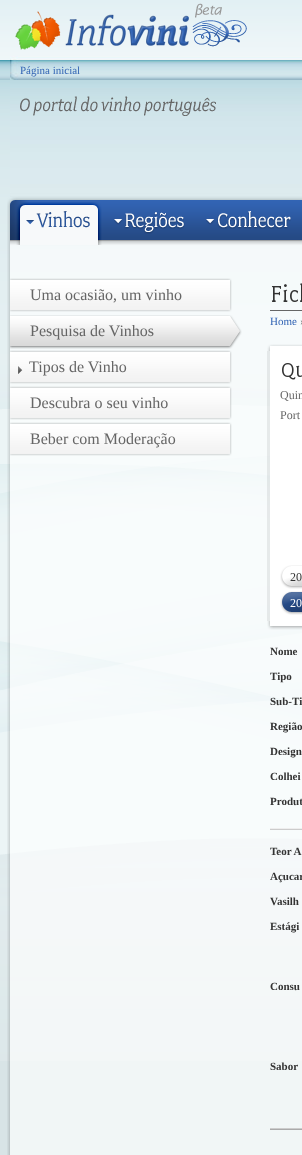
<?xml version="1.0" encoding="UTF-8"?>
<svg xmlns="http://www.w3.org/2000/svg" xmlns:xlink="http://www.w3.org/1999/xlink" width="302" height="1155">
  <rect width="100%" height="100%" fill="#d8e4e6" />
  <image x="0" y="0" width="302" height="1061" xlink:href="image1.png" />
  <image x="10" y="56" width="292" height="141" xlink:href="image2.png" />
  <image x="15" y="3" width="232" height="47" xlink:href="image3.png" />
  <image x="20" y="96" width="196" height="20" xlink:href="image4.png" />
  <image x="7" y="197" width="295" height="53" xlink:href="image5.png" />
  <image x="16" y="202" width="86" height="43" xlink:href="image6.png" />
  <image x="114" y="212" width="71" height="22" xlink:href="image7.png" />
  <image x="206" y="211" width="85" height="18" xlink:href="image8.png" />
  <image x="7" y="250" width="295" height="905" xlink:href="image9.png" />
  <image x="10" y="278" width="222" height="34" xlink:href="image10.png" />
  <image x="10" y="315" width="232" height="34" xlink:href="image11.png" />
  <image x="10" y="350" width="222" height="34" xlink:href="image12.png" />
  <image x="18" y="366" width="5" height="8" xlink:href="image13.png" />
  <image x="10" y="386" width="222" height="34" xlink:href="image14.png" />
  <image x="10" y="422" width="222" height="34" xlink:href="image15.png" />
  <rect x="270" y="310" width="32" height="1" fill="#666666" />
  <image x="271" y="283" width="31" height="19" xlink:href="image16.png" />
  <image x="267" y="344" width="8" height="7" xlink:href="image17.png" />
  <image x="275" y="344" width="27" height="2" xlink:href="image18.png" />
  <rect x="267" y="351" width="3" height="270" fill="#000000" fill-opacity="0.07" />
  <image x="267" y="621" width="8" height="9" xlink:href="image22.png" />
  <rect x="270" y="346" width="32" height="280" fill="#ffffff" />
  <image x="282" y="363" width="20" height="17" xlink:href="image19.png" />
  <image x="280" y="565" width="22" height="24" xlink:href="image20.png" />
  <image x="280" y="591" width="22" height="24" xlink:href="image21.png" />
  <image x="275" y="626" width="27" height="4" xlink:href="image23.png" />
  <rect x="270" y="828" width="32" height="1" fill="#eeeeee" />
  <rect x="270" y="829" width="32" height="1" fill="#cccccc" />
  <rect x="270" y="1128" width="32" height="1" fill="#cccccc" />
  <rect x="270" y="1129" width="32" height="1" fill="#aaaaaa" />
  <text x="20" y="74" style="font-family: Liberation Serif; font-size: 11px; fill: #3264b4">Página inicial</text>
  <text x="30" y="300" style="font-family: Liberation Serif; font-size: 16px; fill: #666666">Uma ocasião, um vinho</text>
  <text x="30" y="336" style="font-family: Liberation Serif; font-size: 16px; fill: #666666">Pesquisa de Vinhos</text>
  <text x="29" y="372" style="font-family: Liberation Serif; font-size: 16px; fill: #666666">Tipos de Vinho</text>
  <text x="30" y="408" style="font-family: Liberation Serif; font-size: 16px; fill: #666666">Descubra o seu vinho</text>
  <text x="30" y="444" style="font-family: Liberation Serif; font-size: 16px; fill: #666666">Beber com Moderação</text>
  <text x="270" y="325" style="font-family: Liberation Serif; font-size: 11px; fill: #3264b4">Home</text>
  <text x="300" y="325" style="font-family: Liberation Serif; font-size: 11px; fill: #666666">›</text>
  <text x="280" y="399" style="font-family: Liberation Serif; font-size: 12px; fill: #666666">Quin</text>
  <text x="280" y="419" style="font-family: Liberation Serif; font-size: 12px; fill: #666666">Port</text>
  <text x="290" y="581" style="font-family: Liberation Serif; font-size: 12px; fill: #333333">20</text>
  <text x="290" y="607" style="font-family: Liberation Serif; font-size: 12px; fill: #ffffff">20</text>
  <text x="270" y="655" style="font-family: Liberation Serif; font-size: 11px; font-weight: bold; fill: #333333">Nome</text>
  <text x="270" y="680" style="font-family: Liberation Serif; font-size: 11px; font-weight: bold; fill: #333333">Tipo</text>
  <text x="270" y="705" style="font-family: Liberation Serif; font-size: 11px; font-weight: bold; fill: #333333">Sub-Ti</text>
  <text x="270" y="730" style="font-family: Liberation Serif; font-size: 11px; font-weight: bold; fill: #333333">Região</text>
  <text x="270" y="755" style="font-family: Liberation Serif; font-size: 11px; font-weight: bold; fill: #333333">Design</text>
  <text x="270" y="780" style="font-family: Liberation Serif; font-size: 11px; font-weight: bold; fill: #333333">Colhei</text>
  <text x="270" y="805" style="font-family: Liberation Serif; font-size: 11px; font-weight: bold; fill: #333333">Produt</text>
  <text x="270" y="855" style="font-family: Liberation Serif; font-size: 11px; font-weight: bold; fill: #333333">Teor A</text>
  <text x="270" y="880" style="font-family: Liberation Serif; font-size: 11px; font-weight: bold; fill: #333333">Açucar</text>
  <text x="270" y="905" style="font-family: Liberation Serif; font-size: 11px; font-weight: bold; fill: #333333">Vasilh</text>
  <text x="270" y="930" style="font-family: Liberation Serif; font-size: 11px; font-weight: bold; fill: #333333">Estági</text>
  <text x="270" y="990" style="font-family: Liberation Serif; font-size: 11px; font-weight: bold; fill: #333333">Consu</text>
  <text x="270" y="1070" style="font-family: Liberation Serif; font-size: 11px; font-weight: bold; fill: #333333">Sabor</text>
</svg>
